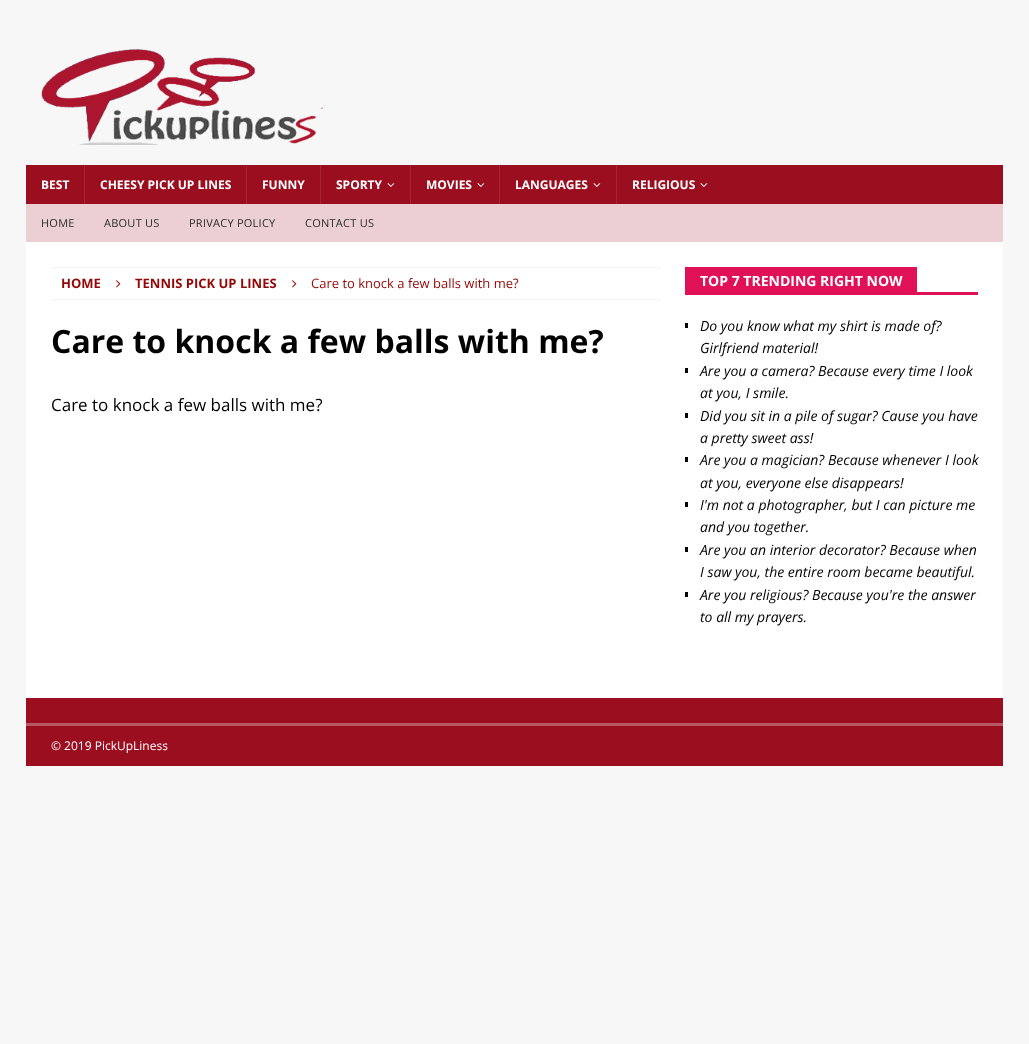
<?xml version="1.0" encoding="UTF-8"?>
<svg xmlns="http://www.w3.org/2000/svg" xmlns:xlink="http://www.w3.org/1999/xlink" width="1029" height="1044">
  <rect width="100%" height="100%" fill="#f7f7f7" />
  <image x="41" y="49" width="282" height="96" xlink:href="image1.png" />
  <rect x="26" y="165" width="977" height="39" fill="#9a0e20" />
  <rect x="84" y="165" width="1" height="39" fill="#a42636" />
  <rect x="246" y="165" width="1" height="39" fill="#a42636" />
  <rect x="320" y="165" width="1" height="39" fill="#a42636" />
  <image x="387" y="183" width="8" height="4" xlink:href="image2.png" />
  <rect x="410" y="165" width="1" height="39" fill="#a42636" />
  <image x="477" y="183" width="8" height="4" xlink:href="image2.png" />
  <rect x="499" y="165" width="1" height="39" fill="#a42636" />
  <image x="593" y="183" width="8" height="4" xlink:href="image2.png" />
  <rect x="616" y="165" width="1" height="39" fill="#a42636" />
  <image x="700" y="183" width="8" height="4" xlink:href="image2.png" />
  <rect x="26" y="204" width="977" height="38" fill="#ebcfd2" />
  <rect x="26" y="242" width="977" height="456" fill="#ffffff" />
  <path d="M 51 267.5 h 610" fill="none" stroke="#ebebeb" stroke-dasharray="1 1" />
  <path d="M 51 299.5 h 610" fill="none" stroke="#ebebeb" stroke-dasharray="1 1" />
  <image x="116" y="280" width="5" height="8" xlink:href="image3.png" />
  <image x="292" y="280" width="5" height="8" xlink:href="image3.png" />
  <rect x="685" y="292" width="293" height="3" fill="#e01156" />
  <rect x="685" y="267" width="232" height="25" fill="#e01156" />
  <rect x="685" y="323" width="3" height="5" fill="#000000" />
  <rect x="685" y="368" width="3" height="5" fill="#000000" />
  <rect x="685" y="413" width="3" height="5" fill="#000000" />
  <rect x="685" y="457" width="3" height="5" fill="#000000" />
  <rect x="685" y="502" width="3" height="5" fill="#000000" />
  <rect x="685" y="547" width="3" height="5" fill="#000000" />
  <rect x="685" y="592" width="3" height="5" fill="#000000" />
  <rect x="26" y="698" width="977" height="25" fill="#9a0e20" />
  <rect x="26" y="726" width="977" height="40" fill="#9a0e20" />
  <rect x="26" y="723" width="977" height="3" fill="#b85663" />
  <text x="41" y="189" style="font-family: Open Sans; font-size: 12px; font-weight: bold; fill: #ffffff">BEST</text>
  <text x="100" y="189" style="font-family: Open Sans; font-size: 12px; font-weight: bold; fill: #ffffff">CHEESY PICK UP LINES</text>
  <text x="262" y="189" style="font-family: Open Sans; font-size: 12px; font-weight: bold; fill: #ffffff">FUNNY</text>
  <text x="336" y="189" style="font-family: Open Sans; font-size: 12px; font-weight: bold; fill: #ffffff">SPORTY</text>
  <text x="426" y="189" style="font-family: Open Sans; font-size: 12px; font-weight: bold; fill: #ffffff">MOVIES</text>
  <text x="515" y="189" style="font-family: Open Sans; font-size: 12px; font-weight: bold; fill: #ffffff">LANGUAGES</text>
  <text x="632" y="189" style="font-family: Open Sans; font-size: 12px; font-weight: bold; fill: #ffffff">RELIGIOUS</text>
  <text x="41" y="227" style="font-family: Open Sans; font-size: 11px; letter-spacing: 0.25px; fill: #2a2a2a">HOME</text>
  <text x="104" y="227" style="font-family: Open Sans; font-size: 11px; letter-spacing: 0.25px; fill: #2a2a2a">ABOUT US</text>
  <text x="189" y="227" style="font-family: Open Sans; font-size: 11px; letter-spacing: 0.25px; fill: #2a2a2a">PRIVACY POLICY</text>
  <text x="305" y="227" style="font-family: Open Sans; font-size: 11px; letter-spacing: 0.25px; fill: #2a2a2a">CONTACT US</text>
  <text x="61" y="288" style="font-family: Open Sans; font-size: 13px; font-weight: bold; fill: #960606">HOME</text>
  <text x="135" y="288" style="font-family: Open Sans; font-size: 13px; font-weight: bold; fill: #960606">TENNIS PICK UP LINES</text>
  <text x="311" y="288" style="font-family: Open Sans; font-size: 13px; fill: #960606">Care to knock a few balls with me?</text>
  <text x="51" y="353" style="font-family: Open Sans; font-size: 32px; font-weight: bold; fill: #000000">Care to knock a few balls with me?</text>
  <text x="51" y="411" style="font-family: Open Sans; font-size: 17px; fill: #000000">Care to knock a few balls with me?</text>
  <text x="700" y="286" style="font-family: Open Sans; font-size: 14px; font-weight: bold; fill: #ffffff">TOP 7 TRENDING RIGHT NOW</text>
  <text x="700" y="331" style="font-family: Open Sans; font-size: 14px; font-style: italic; fill: #000000">Do you know what my shirt is made of?</text>
  <text x="700" y="353" style="font-family: Open Sans; font-size: 14px; font-style: italic; fill: #000000">Girlfriend material!</text>
  <text x="700" y="376" style="font-family: Open Sans; font-size: 14px; font-style: italic; fill: #000000">Are you a camera? Because every time I look</text>
  <text x="700" y="398" style="font-family: Open Sans; font-size: 14px; font-style: italic; fill: #000000">at you, I smile.</text>
  <text x="700" y="421" style="font-family: Open Sans; font-size: 14px; font-style: italic; fill: #000000">Did you sit in a pile of sugar? Cause you have</text>
  <text x="700" y="443" style="font-family: Open Sans; font-size: 14px; font-style: italic; fill: #000000">a pretty sweet ass!</text>
  <text x="700" y="465" style="font-family: Open Sans; font-size: 14px; font-style: italic; fill: #000000">Are you a magician? Because whenever I look</text>
  <text x="700" y="488" style="font-family: Open Sans; font-size: 14px; font-style: italic; fill: #000000">at you, everyone else disappears!</text>
  <text x="700" y="510" style="font-family: Open Sans; font-size: 14px; font-style: italic; fill: #000000">I'm not a photographer, but I can picture me</text>
  <text x="700" y="532" style="font-family: Open Sans; font-size: 14px; font-style: italic; fill: #000000">and you together.</text>
  <text x="700" y="555" style="font-family: Open Sans; font-size: 14px; font-style: italic; fill: #000000">Are you an interior decorator? Because when</text>
  <text x="700" y="577" style="font-family: Open Sans; font-size: 14px; font-style: italic; fill: #000000">I saw you, the entire room became beautiful.</text>
  <text x="700" y="600" style="font-family: Open Sans; font-size: 14px; font-style: italic; fill: #000000">Are you religious? Because you're the answer</text>
  <text x="700" y="622" style="font-family: Open Sans; font-size: 14px; font-style: italic; fill: #000000">to all my prayers.</text>
  <text x="51" y="750" style="font-family: Open Sans; font-size: 12px; fill: #ffffff">© 2019 PickUpLiness</text>
</svg>
